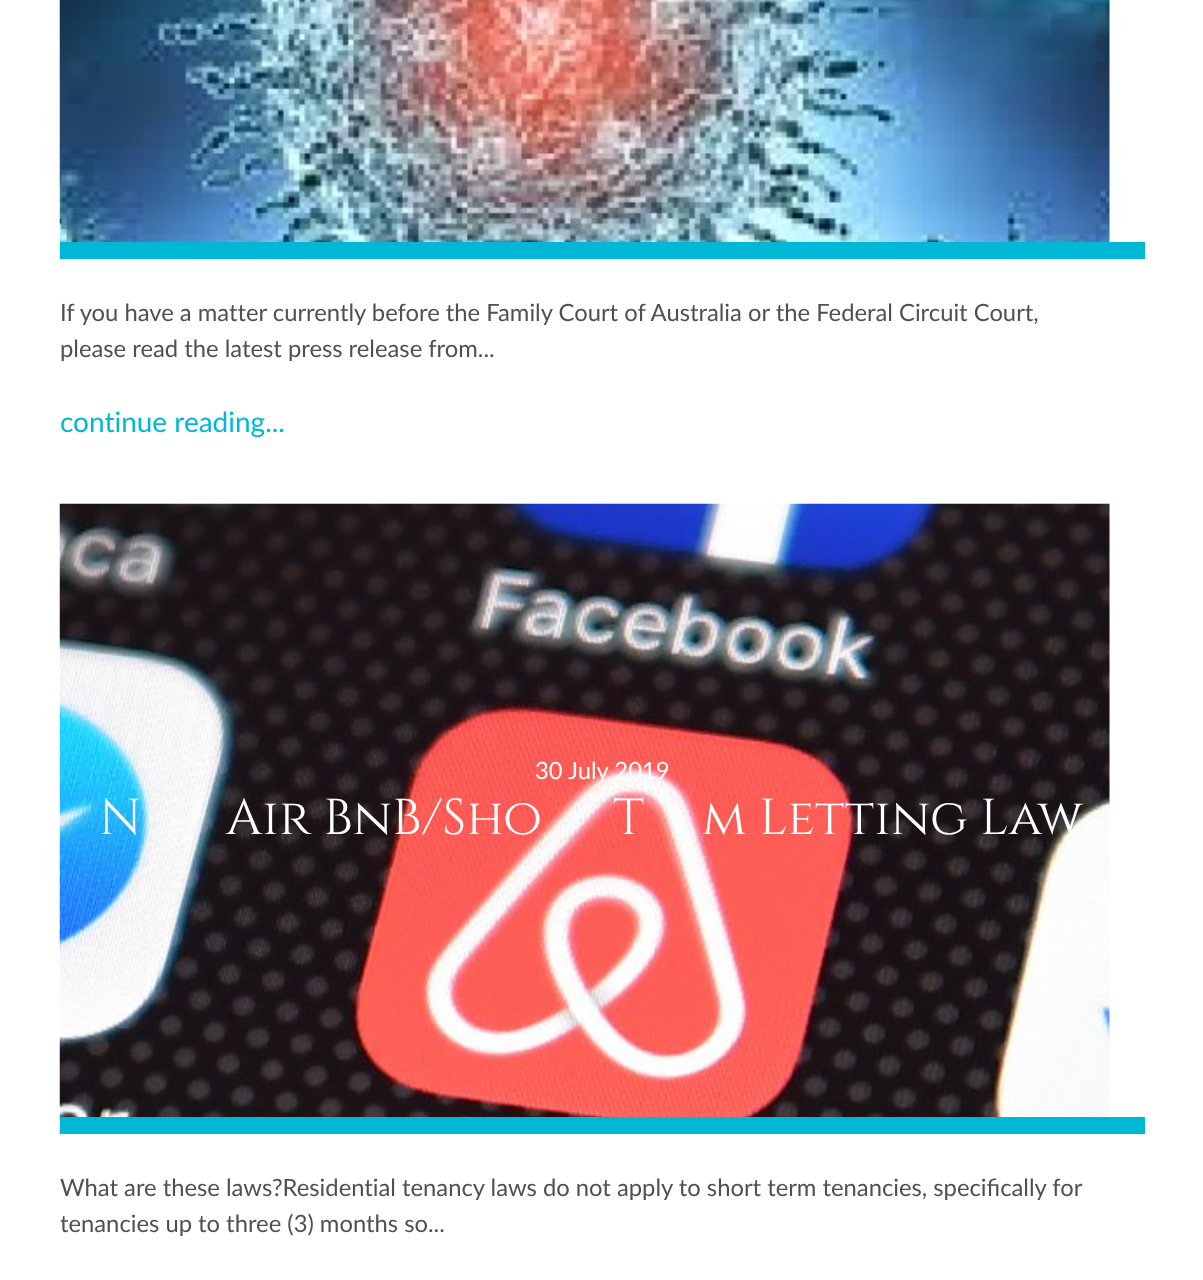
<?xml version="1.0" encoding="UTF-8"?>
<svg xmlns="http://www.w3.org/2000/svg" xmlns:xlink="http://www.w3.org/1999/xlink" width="1203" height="1280">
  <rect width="100%" height="100%" fill="#ffffff" />
  <image x="59" y="0" width="1051" height="259" xlink:href="image1.png" />
  <rect x="60" y="242" width="1085" height="17" fill="#00b8d6" />
  <image x="59" y="503" width="1051" height="631" xlink:href="image2.png" />
  <rect x="60" y="1117" width="1085" height="17" fill="#00b8d6" />
  <text x="60" y="321" style="font-family: Lato; font-size: 23.8px; fill: #50514f">If you have a matter currently before the Family Court of Australia or the Federal Circuit Court,</text>
  <text x="60" y="357" style="font-family: Lato; font-size: 23.8px; fill: #50514f">please read the latest press release from...</text>
  <text x="60" y="432" style="font-family: Lato; font-size: 28px; fill: #00b8d6">continue reading...</text>
  <text x="535" y="779" style="font-family: Lato; font-size: 23.8px; fill: #ffffff">30 July 2019</text>
  <text x="99" y="834" style="font-family: Cinzel; font-size: 50.5px; fill: #ffffff">N</text>
  <text x="226" y="834" style="font-family: Cinzel; font-size: 50.5px; fill: #ffffff">Air BnB/Sho</text>
  <text x="613" y="834" style="font-family: Cinzel; font-size: 50.5px; fill: #ffffff">T</text>
  <text x="702" y="834" style="font-family: Cinzel; font-size: 50.5px; fill: #ffffff">m Letting Law</text>
  <text x="60" y="1196" style="font-family: Lato; font-size: 23.8px; fill: #50514f">What are these laws?Residential tenancy laws do not apply to short term tenancies, specifically for</text>
  <text x="60" y="1232" style="font-family: Lato; font-size: 23.8px; fill: #50514f">tenancies up to three (3) months so...</text>
</svg>
